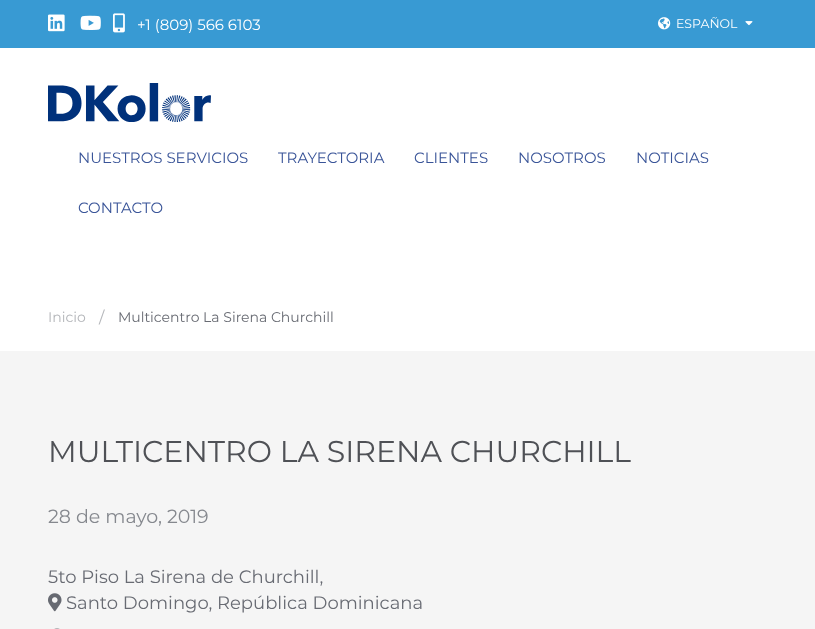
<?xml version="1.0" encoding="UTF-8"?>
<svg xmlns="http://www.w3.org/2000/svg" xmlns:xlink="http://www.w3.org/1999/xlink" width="815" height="629">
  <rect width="100%" height="100%" fill="#ffffff" />
  <rect width="815" height="48" fill="#389ad3" />
  <image x="48" y="14" width="17" height="18" xlink:href="image1.png" />
  <image x="80" y="15" width="21" height="15" xlink:href="image2.png" />
  <image x="113" y="13" width="12" height="20" xlink:href="image3.png" />
  <image x="658" y="17" width="13" height="13" xlink:href="image4.png" />
  <image x="745" y="21" width="8" height="5" xlink:href="image5.png" />
  <image x="48" y="83" width="163" height="39" xlink:href="image6.png" />
  <rect y="351" width="815" height="278" fill="#f5f5f5" />
  <image x="48" y="593" width="14" height="19" xlink:href="image7.png" />
  <image x="54" y="628" width="6" height="1" xlink:href="image8.png" />
  <text x="137" y="30" style="font-family: Montserrat; font-size: 15px; fill: #ffffff">+1 (809) 566 6103</text>
  <text x="676" y="28" style="font-family: Montserrat; font-size: 12.5px; fill: #ffffff">ESPAÑOL</text>
  <text x="78" y="163" style="font-family: Montserrat; font-size: 15px; fill: #395498">NUESTROS SERVICIOS</text>
  <text x="278" y="163" style="font-family: Montserrat; font-size: 15px; fill: #395498">TRAYECTORIA</text>
  <text x="414" y="163" style="font-family: Montserrat; font-size: 15px; fill: #395498">CLIENTES</text>
  <text x="518" y="163" style="font-family: Montserrat; font-size: 15px; fill: #395498">NOSOTROS</text>
  <text x="636" y="163" style="font-family: Montserrat; font-size: 15px; fill: #395498">NOTICIAS</text>
  <text x="78" y="213" style="font-family: Montserrat; font-size: 15px; fill: #395498">CONTACTO</text>
  <text x="48" y="322" style="font-family: Montserrat; font-size: 14px; fill: #b3b5b9">Inicio</text>
  <text x="99" y="323" style="font-family: Montserrat; font-size: 16px; fill: #b3b5b9">/</text>
  <text x="118" y="322" style="font-family: Montserrat; font-size: 14px; fill: #686b73">Multicentro La Sirena Churchill</text>
  <text x="48" y="462" style="font-family: Montserrat; font-size: 30px; fill: #4f5156">MULTICENTRO LA SIRENA CHURCHILL</text>
  <text x="48" y="523" style="font-family: Montserrat; font-size: 19px; fill: #85888e">28 de mayo, 2019</text>
  <text x="48" y="583" style="font-family: Montserrat; font-size: 18px; fill: #686b73">5to Piso La Sirena de Churchill,</text>
  <text x="66" y="609" style="font-family: Montserrat; font-size: 18px; fill: #686b73">Santo Domingo, República Dominicana</text>
</svg>
